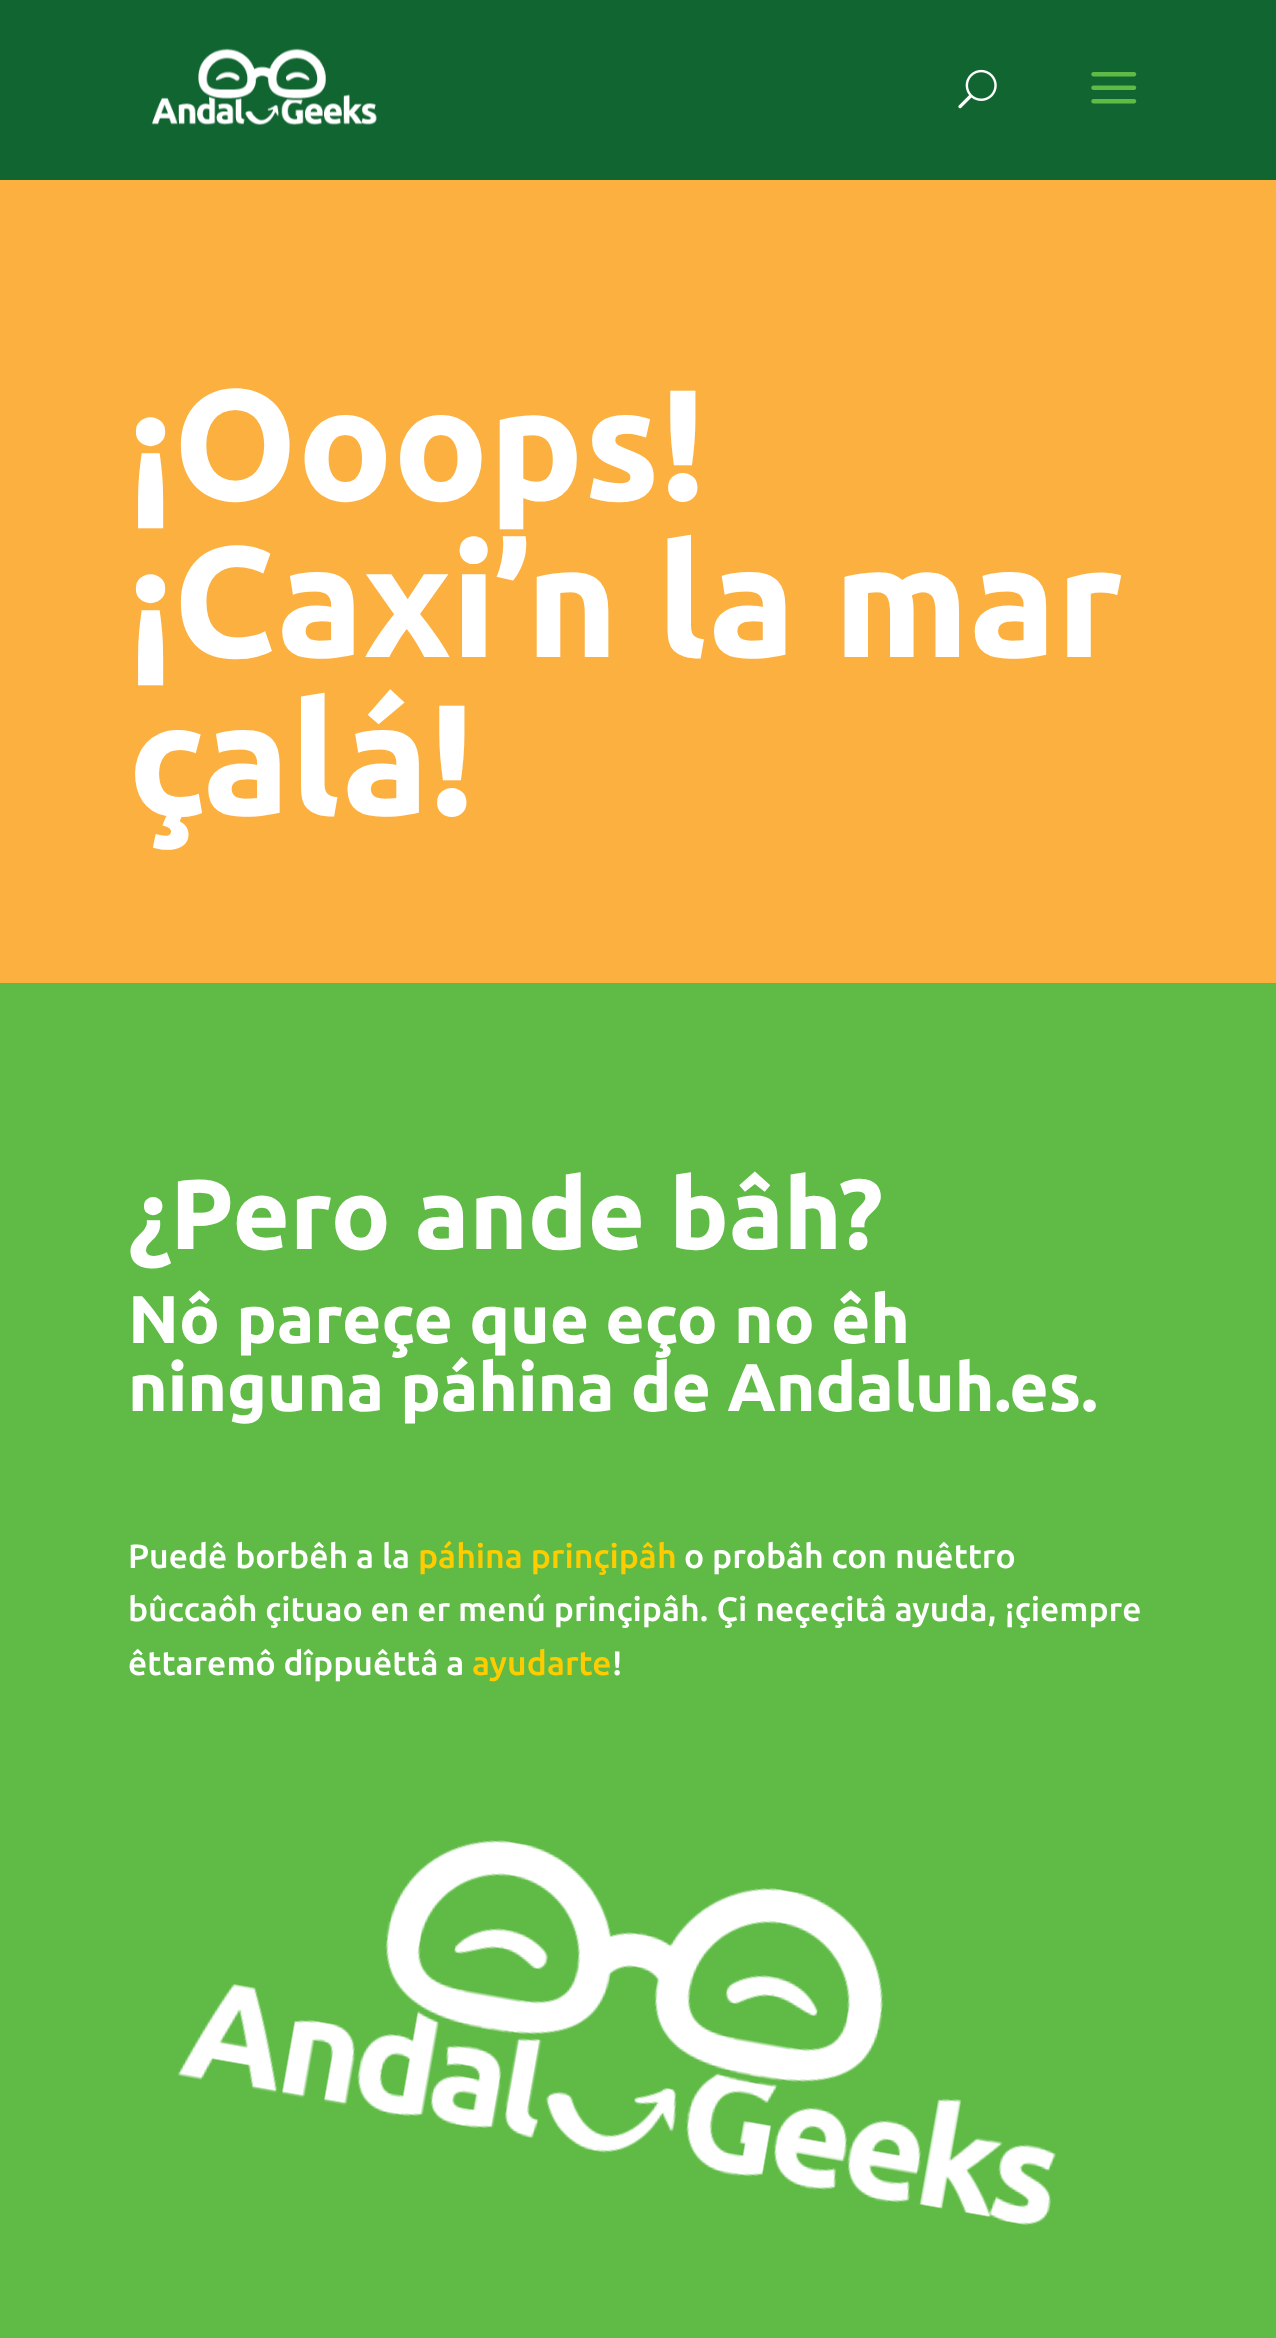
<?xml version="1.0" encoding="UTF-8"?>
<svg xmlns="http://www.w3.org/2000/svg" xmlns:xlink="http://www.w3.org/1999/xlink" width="1276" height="2338">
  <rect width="100%" height="100%" fill="#fbb040" />
  <rect width="1276" height="180" fill="#116531" />
  <image x="151" y="48" width="226" height="77" xlink:href="image1.png" />
  <image x="958" y="69" width="39" height="40" xlink:href="image2.png" />
  <image x="1091" y="72" width="46" height="32" xlink:href="image3.png" />
  <rect y="983" width="1276" height="1355" fill="#5fbb46" />
  <image x="177" y="1839" width="879" height="387" xlink:href="image4.png" />
  <text x="128" y="500" style="font-family: Ubuntu; font-size: 157.5px; font-weight: bold; fill: #ffffff">¡Ooops!</text>
  <text x="128" y="657" style="font-family: Ubuntu; font-size: 157.5px; font-weight: bold; fill: #ffffff">¡Caxi’n la mar</text>
  <text x="128" y="815" style="font-family: Ubuntu; font-size: 157.5px; font-weight: bold; fill: #ffffff">çalá!</text>
  <text x="128" y="1249" style="font-family: Ubuntu; font-size: 99px; font-weight: bold; fill: #ffffff">¿Pero ande bâh?</text>
  <text x="128" y="1343" style="font-family: Ubuntu; font-size: 67.5px; font-weight: bold; fill: #ffffff">Nô pareçe que eço no êh</text>
  <text x="128" y="1411" style="font-family: Ubuntu; font-size: 67.5px; font-weight: bold; fill: #ffffff">ninguna páhina de Andaluh.es.</text>
  <text x="128" y="1568" style="font-family: Ubuntu; font-size: 33.75px; font-weight: 500; fill: #ffffff">Puedê borbêh a la</text>
  <text x="418" y="1568" style="font-family: Ubuntu; font-size: 33.75px; font-weight: 500; fill: #ffcc00">páhina prinçipâh</text>
  <text x="684" y="1568" style="font-family: Ubuntu; font-size: 33.75px; font-weight: 500; fill: #ffffff">o probâh con nuêttro</text>
  <text x="128" y="1621" style="font-family: Ubuntu; font-size: 33.75px; font-weight: 500; fill: #ffffff">bûccaôh çituao en er menú prinçipâh. Çi neçeçitâ ayuda, ¡çiempre</text>
  <text x="128" y="1675" style="font-family: Ubuntu; font-size: 33.75px; font-weight: 500; fill: #ffffff">êttaremô dîppuêttâ a</text>
  <text x="472" y="1675" style="font-family: Ubuntu; font-size: 33.75px; font-weight: 500; fill: #ffcc00">ayudarte</text>
  <text x="612" y="1675" style="font-family: Ubuntu; font-size: 33.75px; font-weight: 500; fill: #ffffff">!</text>
</svg>
